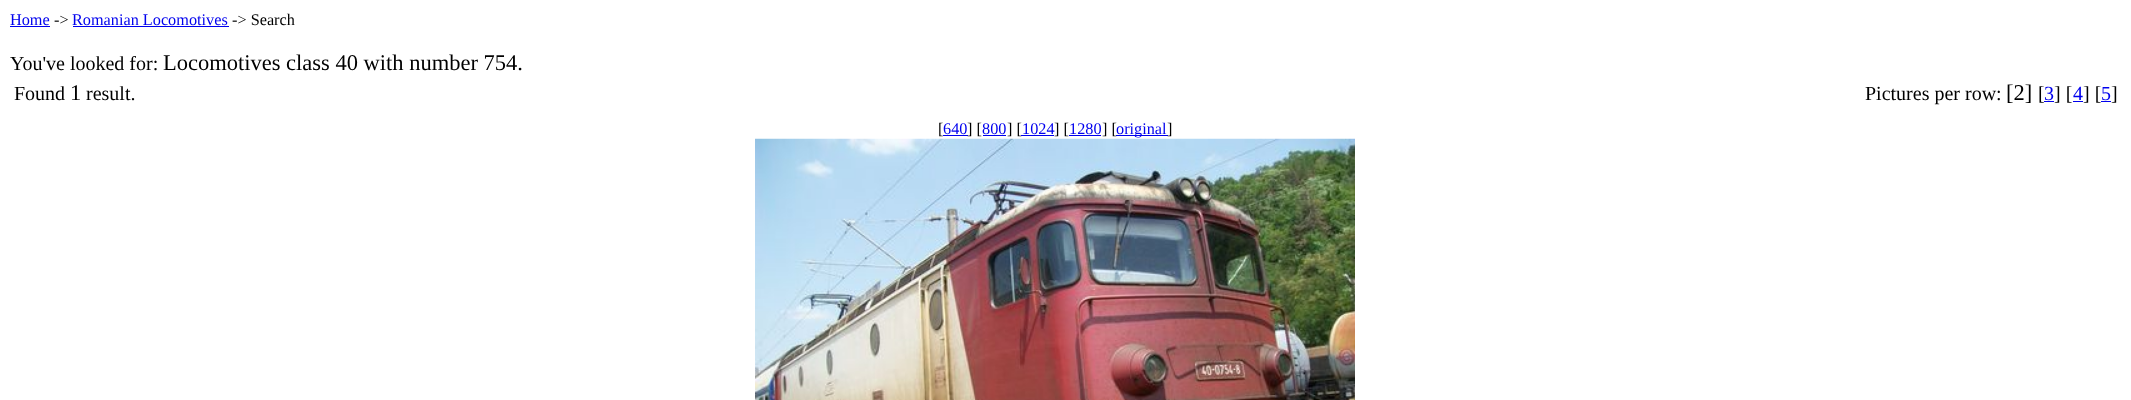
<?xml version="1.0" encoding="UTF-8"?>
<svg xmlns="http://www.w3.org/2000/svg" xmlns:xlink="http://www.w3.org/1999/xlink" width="2131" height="400">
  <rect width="100%" height="100%" fill="#ffffff" />
  <rect x="10" y="26" width="40" height="1" fill="#0000ee" />
  <rect x="73" y="26" width="156" height="1" fill="#0000ee" />
  <rect x="2044" y="101" width="10" height="1" fill="#0000ee" />
  <rect x="2073" y="101" width="10" height="1" fill="#0000ee" />
  <rect x="2101" y="101" width="10" height="1" fill="#0000ee" />
  <rect x="943" y="135" width="25" height="1" fill="#0000ee" />
  <rect x="983" y="135" width="23" height="1" fill="#0000ee" />
  <rect x="1069" y="135" width="32" height="1" fill="#0000ee" />
  <rect x="1116" y="135" width="52" height="1" fill="#0000ee" />
  <image x="755" y="138" width="600" height="262" xlink:href="image1.png" />
  <text x="10" y="25" style="font-family: Liberation Serif; font-size: 16.25px; fill: #0000ee">Home</text>
  <text x="54" y="25" style="font-family: Liberation Serif; font-size: 16.25px; fill: #000000">-&gt;</text>
  <text x="72" y="25" style="font-family: Liberation Serif; font-size: 16.25px; fill: #0000ee">Romanian Locomotives</text>
  <text x="232" y="25" style="font-family: Liberation Serif; font-size: 16.25px; fill: #000000">-&gt; Search</text>
  <text x="10" y="70" style="font-family: Liberation Serif; font-size: 20px; fill: #000000">You've looked for:</text>
  <text x="163" y="70" style="font-family: Liberation Serif; font-size: 22.5px; fill: #000000">Locomotives class 40 with number 754.</text>
  <text x="14" y="100" style="font-family: Liberation Serif; font-size: 20px; fill: #000000">Found</text>
  <text x="70" y="100" style="font-family: Liberation Serif; font-size: 22.5px; fill: #000000">1</text>
  <text x="86" y="100" style="font-family: Liberation Serif; font-size: 20px; fill: #000000">result.</text>
  <text x="1865" y="100" style="font-family: Liberation Serif; font-size: 20px; fill: #000000">Pictures per row:</text>
  <text x="2006" y="100" style="font-family: Liberation Serif; font-size: 22.5px; fill: #000000">[2]</text>
  <text x="2038" y="100" style="font-family: Liberation Serif; font-size: 20px; fill: #000000">[</text>
  <text x="2044" y="100" style="font-family: Liberation Serif; font-size: 20px; fill: #0000ee">3</text>
  <text x="2054" y="100" style="font-family: Liberation Serif; font-size: 20px; fill: #000000">] [</text>
  <text x="2073" y="100" style="font-family: Liberation Serif; font-size: 20px; fill: #0000ee">4</text>
  <text x="2083" y="100" style="font-family: Liberation Serif; font-size: 20px; fill: #000000">] [</text>
  <text x="2101" y="100" style="font-family: Liberation Serif; font-size: 20px; fill: #0000ee">5</text>
  <text x="2111" y="100" style="font-family: Liberation Serif; font-size: 20px; fill: #000000">]</text>
  <text x="938" y="134" style="font-family: Liberation Serif; font-size: 16.25px; fill: #000000">[</text>
  <text x="943" y="134" style="font-family: Liberation Serif; font-size: 16.25px; fill: #0000ee">640</text>
  <text x="967" y="134" style="font-family: Liberation Serif; font-size: 16.25px; fill: #000000">] [</text>
  <text x="982" y="134" style="font-family: Liberation Serif; font-size: 16.25px; fill: #0000ee">800</text>
  <text x="1007" y="134" style="font-family: Liberation Serif; font-size: 16.25px; fill: #000000">] [</text>
  <rect x="1021" y="135" width="33" height="1" fill="#0000ee" />
  <text x="1022" y="134" style="font-family: Liberation Serif; font-size: 16.25px; fill: #0000ee">1024</text>
  <text x="1054" y="134" style="font-family: Liberation Serif; font-size: 16.25px; fill: #000000">] [</text>
  <text x="1069" y="134" style="font-family: Liberation Serif; font-size: 16.25px; fill: #0000ee">1280</text>
  <text x="1102" y="134" style="font-family: Liberation Serif; font-size: 16.25px; fill: #000000">] [</text>
  <text x="1116" y="134" style="font-family: Liberation Serif; font-size: 16.25px; fill: #0000ee">original</text>
  <text x="1167" y="134" style="font-family: Liberation Serif; font-size: 16.25px; fill: #000000">]</text>
</svg>
